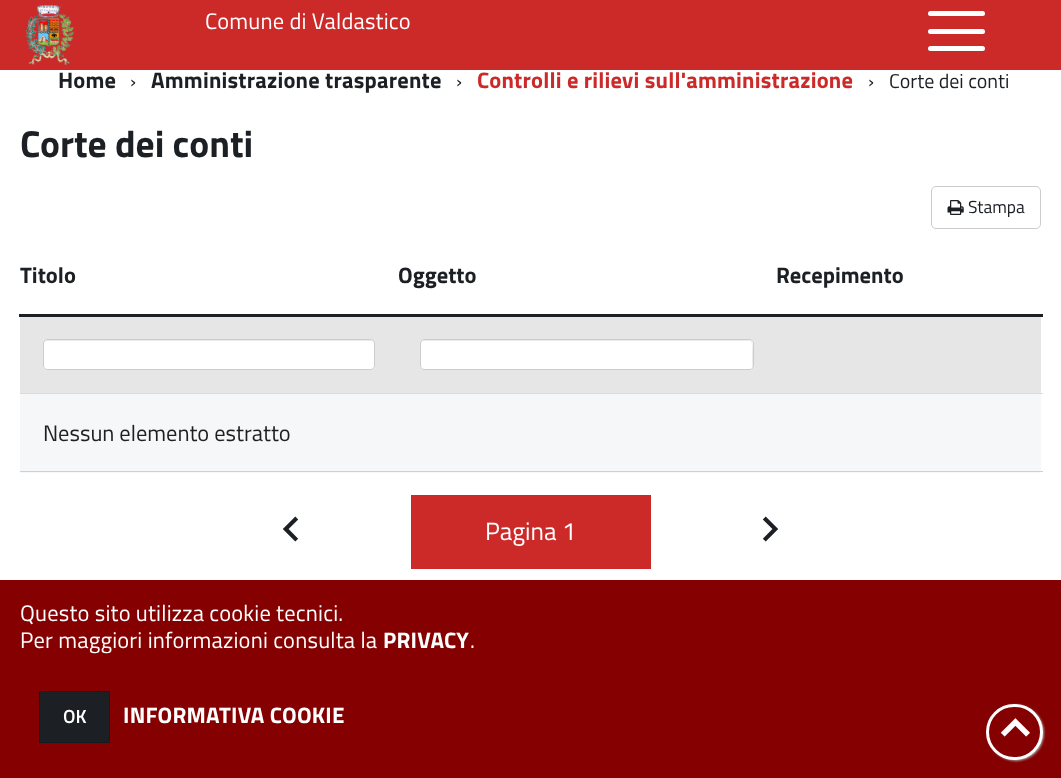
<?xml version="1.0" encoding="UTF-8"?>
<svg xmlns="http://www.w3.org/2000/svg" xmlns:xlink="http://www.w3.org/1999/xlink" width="1061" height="778">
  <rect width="100%" height="100%" fill="#ffffff" />
  <rect width="1061" height="70" fill="#cc2929" />
  <image x="25" y="5" width="50" height="60" xlink:href="image1.png" />
  <rect x="928" y="29" width="57" height="5" rx="2.5" fill="#ffffff" />
  <rect x="928" y="11" width="57" height="5" rx="2.5" fill="#ffffff" />
  <rect x="928" y="46" width="57" height="5" rx="2.5" fill="#ffffff" />
  <rect x="931.5" y="186.5" width="109" height="42" rx="4.5" fill="none" stroke="#cccccc" />
  <image x="947" y="200" width="17" height="15" xlink:href="image2.png" />
  <rect x="19" y="314" width="1024" height="3" fill="#1c2024" />
  <rect x="20" y="393" width="1023" height="1" fill="#d6dce3" />
  <rect x="20" y="317" width="1021" height="76" fill="#e6e6e6" />
  <rect x="43" y="339" width="332" height="31" rx="4" fill="#ffffff" />
  <path d="M 46 341 h 325 c 2 0 3 1 3 3 v -2 c 0 -1 -1 -2 -2 -2 h -326 c -1 0 -2 1 -2 2 v 2 c 0 -2 1 -3 2 -3 z" fill="#ececec" />
  <rect x="43.5" y="339.5" width="331" height="30" rx="3.5" fill="none" stroke="#cccccc" />
  <rect x="420" y="339" width="334" height="31" rx="4" fill="#ffffff" />
  <path d="M 424 341 h 326 c 3 0 2 10 2 11 v 17 c 2 -2 1 -27 0 -28 l -1 -1 h -327 c -3 0 -3 2 -3 4 c 0 -2 1 -3 3 -3 z" fill="#ececec" />
  <rect x="420.5" y="339.5" width="333" height="30" rx="3.5" fill="none" stroke="#cccccc" />
  <rect x="20" y="394" width="1021" height="79" fill="#f6f7f9" />
  <rect x="20" y="471" width="1023" height="1" fill="#d0d0d0" />
  <rect x="411" y="495" width="240" height="74" fill="#cc2929" />
  <rect y="580" width="1061" height="198" fill="#850000" />
  <rect x="39.5" y="691.5" width="70" height="51" fill="#1c2024" stroke="#171b1f" />
  <rect x="988" y="705" width="56" height="56" rx="28" fill="#aaaaaa" filter="blur(1px)" />
  <rect x="987.5" y="705.5" width="54" height="53" rx="26.5" fill="#850000" stroke="#ffffff" stroke-width="3" />
  <text x="205" y="29" style="font-family: Titillium Web; font-size: 22.5px; letter-spacing: 0.2px; fill: #ffffff">Comune di Valdastico</text>
  <text x="58" y="88" style="font-family: Titillium Web; font-size: 22.5px; font-weight: bold; letter-spacing: 0.2px; fill: #1c2024">Home</text>
  <text x="130" y="88" style="font-family: Titillium Web; font-size: 20px; fill: #1c2024">›</text>
  <text x="151" y="88" style="font-family: Titillium Web; font-size: 22.5px; font-weight: bold; letter-spacing: 0.2px; fill: #1c2024">Amministrazione trasparente</text>
  <text x="456" y="88" style="font-family: Titillium Web; font-size: 20px; fill: #1c2024">›</text>
  <text x="477" y="88" style="font-family: Titillium Web; font-size: 22.5px; font-weight: bold; letter-spacing: 0.2px; fill: #cc2929">Controlli e rilievi sull'amministrazione</text>
  <text x="868" y="88" style="font-family: Titillium Web; font-size: 20px; fill: #1c2024">›</text>
  <text x="889" y="88" style="font-family: Titillium Web; font-size: 20px; fill: #1c2024">Corte dei conti</text>
  <text x="20" y="157" style="font-family: Titillium Web; font-size: 37.5px; font-weight: bold; fill: #1c2024">Corte dei conti</text>
  <text x="968" y="213" style="font-family: Titillium Web; font-size: 17.5px; fill: #1c2024">Stampa</text>
  <text x="20" y="283" style="font-family: Titillium Web; font-size: 22.5px; font-weight: bold; fill: #1c2024">Titolo</text>
  <text x="398" y="283" style="font-family: Titillium Web; font-size: 22.5px; font-weight: bold; fill: #1c2024">Oggetto</text>
  <text x="776" y="283" style="font-family: Titillium Web; font-size: 22.5px; font-weight: bold; fill: #1c2024">Recepimento</text>
  <text x="43" y="441" style="font-family: Titillium Web; font-size: 22.5px; fill: #1c2024">Nessun elemento estratto</text>
  <text x="278" y="540" style="font-family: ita; font-size: 25px; fill: #1c2024">⏴</text>
  <text x="485" y="540" style="font-family: Titillium Web; font-size: 25px; fill: #ffffff">Pagina 1</text>
  <text x="758" y="540" style="font-family: ita; font-size: 25px; fill: #1c2024">⏵</text>
  <text x="20" y="621" style="font-family: Titillium Web; font-size: 22.5px; letter-spacing: 0.2px; fill: #ffffff">Questo sito utilizza cookie tecnici.</text>
  <text x="20" y="648" style="font-family: Titillium Web; font-size: 22.5px; letter-spacing: 0.2px; fill: #ffffff">Per maggiori informazioni consulta la</text>
  <text x="383" y="648" style="font-family: Titillium Web; font-size: 22.5px; font-weight: bold; letter-spacing: 0.2px; fill: #ffffff">PRIVACY</text>
  <text x="470" y="648" style="font-family: Titillium Web; font-size: 22.5px; letter-spacing: 0.2px; fill: #ffffff">.</text>
  <text x="63" y="723" style="font-family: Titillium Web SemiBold; font-size: 19px; font-weight: 600; fill: #ffffff">OK</text>
  <text x="123" y="723" style="font-family: Titillium Web; font-size: 22.5px; font-weight: bold; letter-spacing: 0.2px; fill: #ffffff">INFORMATIVA COOKIE</text>
  <text x="1001" y="740" style="font-family: ita; font-size: 28px; font-weight: bold; fill: #ffffff">⏷</text>
</svg>
